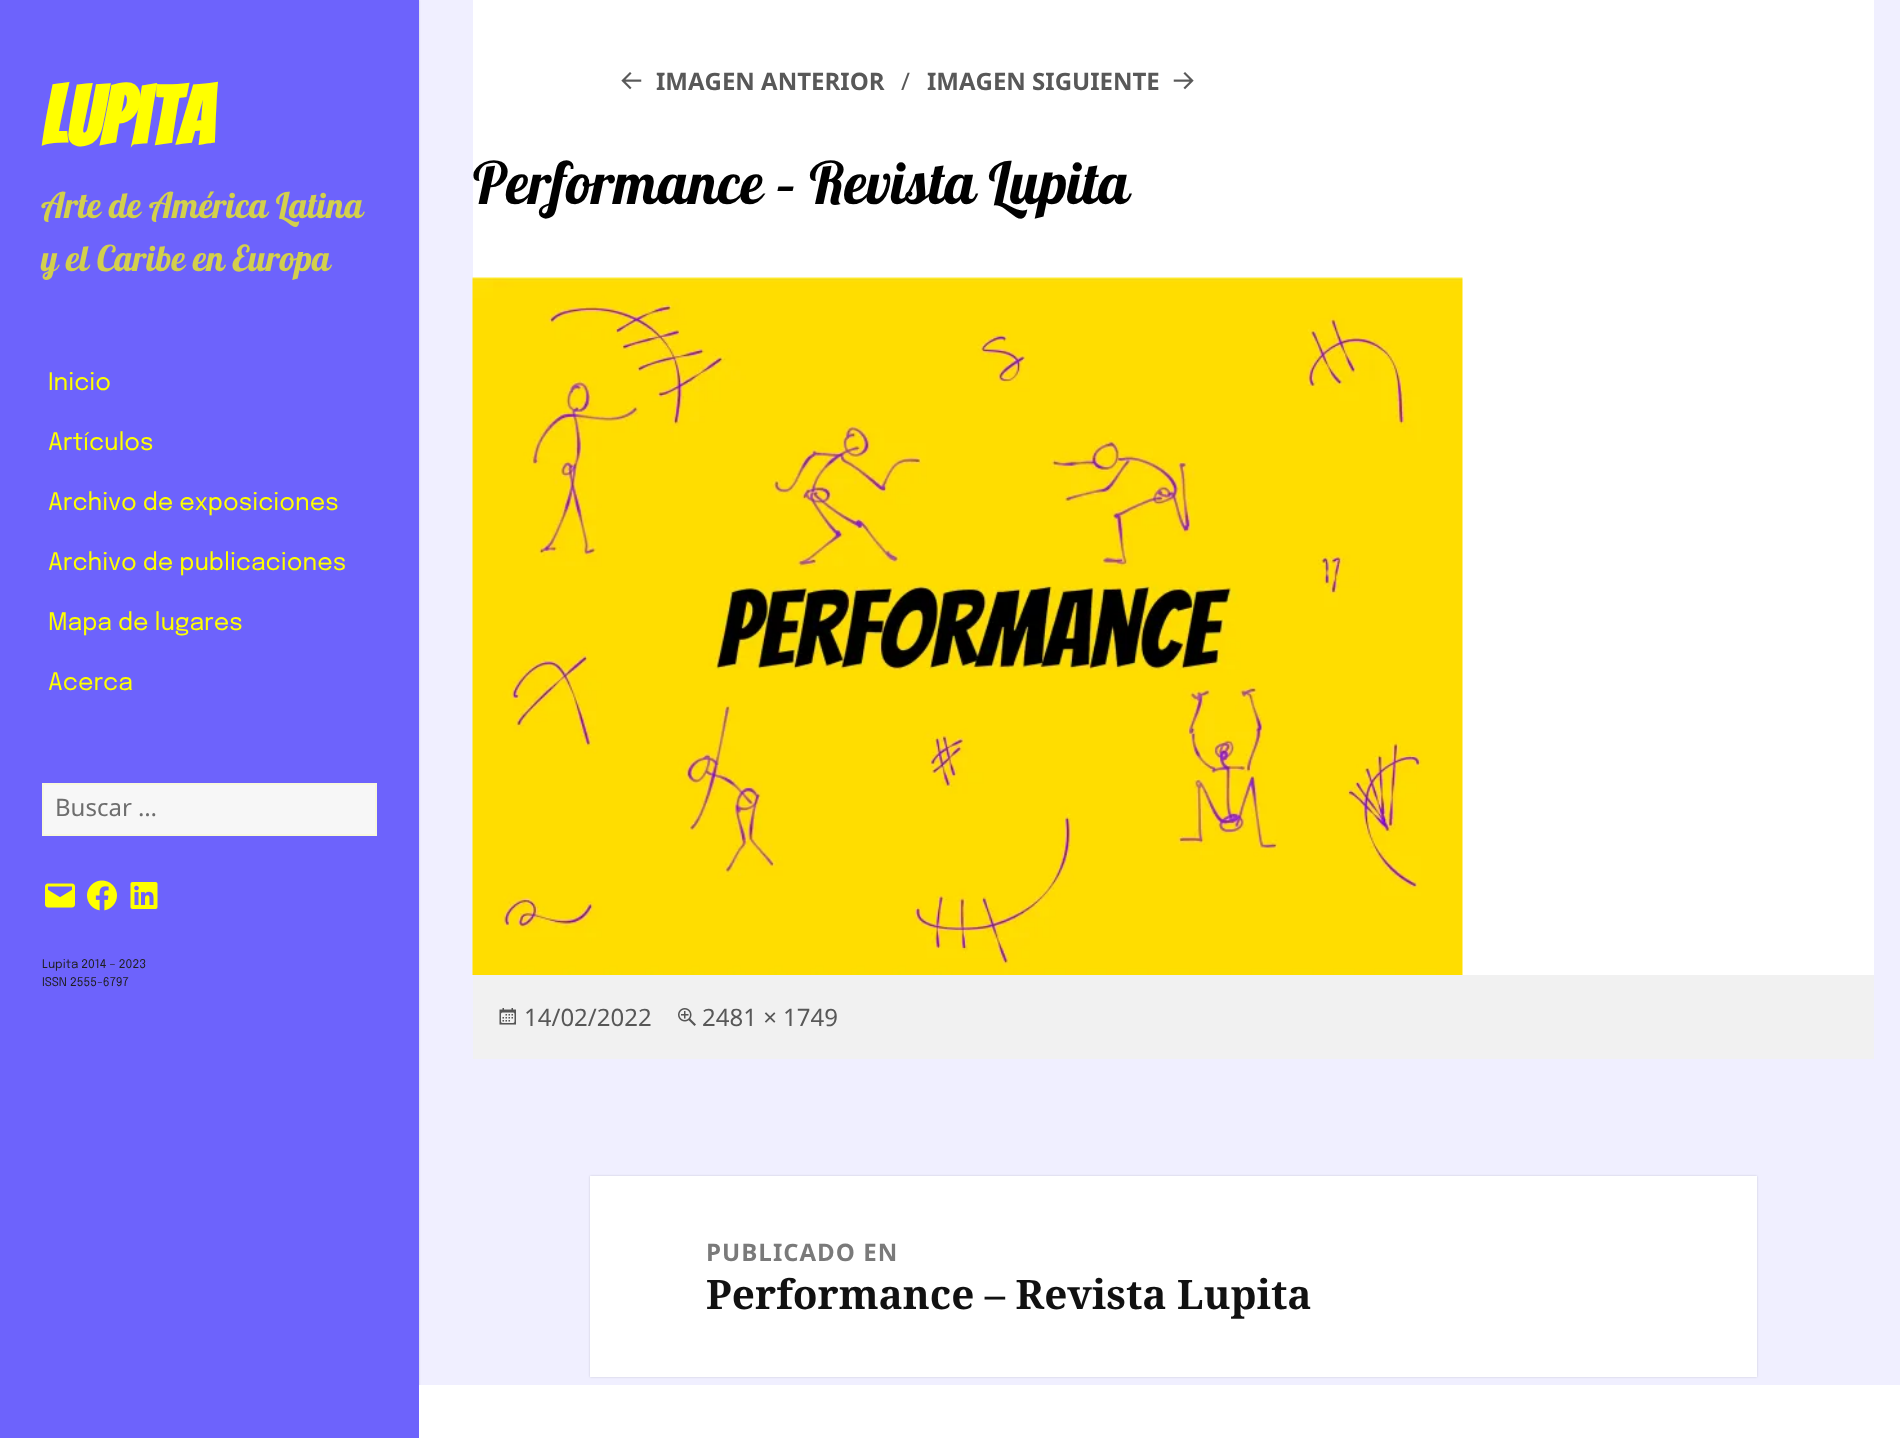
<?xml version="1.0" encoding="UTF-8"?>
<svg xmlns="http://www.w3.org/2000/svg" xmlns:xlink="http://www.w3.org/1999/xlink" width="1900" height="1438">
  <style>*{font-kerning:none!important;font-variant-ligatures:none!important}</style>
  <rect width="100%" height="100%" fill="#f0efff" />
  <rect width="419" height="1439" fill="#000000" fill-opacity="0.15" filter="blur(1px)" />
  <rect width="419" height="1438" fill="#6d63fc" />
  <rect x="43" y="784" width="333" height="51" fill="#f7f7f7" stroke="#f8f8de" stroke-width="2" />
  <image x="45" y="883" width="30" height="25" xlink:href="image1.png" />
  <image x="87" y="880" width="30" height="31" xlink:href="image2.png" />
  <image x="130" y="882" width="28" height="27" xlink:href="image3.png" />
  <rect x="473" width="1401" height="975" fill="#ffffff" />
  <image x="621" y="72" width="21" height="18" xlink:href="image4.png" />
  <image x="1173" y="72" width="21" height="18" xlink:href="image5.png" />
  <image x="472" y="277" width="991" height="698" xlink:href="image6.png" />
  <rect x="473" y="975" width="1401" height="84" fill="#f1f1f1" />
  <image x="499" y="1008" width="17" height="17" xlink:href="image7.png" />
  <image x="678" y="1008" width="18" height="18" xlink:href="image8.png" />
  <rect x="590" y="1176" width="1167" height="201" fill="#000000" fill-opacity="0.15" filter="blur(1px)" />
  <rect x="590" y="1176" width="1167" height="201" fill="#ffffff" />
  <rect x="419" y="1385" width="1481" height="53" fill="#ffffff" />
  <text x="41" y="145" style="font-family: Bangers; font-size: 82px; font-weight: bold; fill: #ffff00">Lupita</text>
  <text x="41" y="218" style="font-family: Lobster; font-size: 35.5px; fill: #d3d04c">Arte de América Latina</text>
  <text x="41" y="271" style="font-family: Lobster; font-size: 35.5px; fill: #d3d04c">y el Caribe en Europa</text>
  <text x="48" y="390" style="font-family: Epilogue; font-size: 24px; fill: #ffff00">Inicio</text>
  <text x="48" y="450" style="font-family: Epilogue; font-size: 24px; fill: #ffff00">Artículos</text>
  <text x="48" y="510" style="font-family: Epilogue; font-size: 24px; fill: #ffff00">Archivo de exposiciones</text>
  <text x="48" y="570" style="font-family: Epilogue; font-size: 24px; fill: #ffff00">Archivo de publicaciones</text>
  <text x="48" y="630" style="font-family: Epilogue; font-size: 24px; fill: #ffff00">Mapa de lugares</text>
  <text x="48" y="690" style="font-family: Epilogue; font-size: 24px; fill: #ffff00">Acerca</text>
  <text x="55" y="816" style="font-family: Noto Sans; font-size: 24px; fill: #6e6e6e">Buscar …</text>
  <text x="42" y="968" style="font-family: Epilogue; font-size: 12px; fill: #1e1e1e">Lupita 2014 – 2023</text>
  <text x="42" y="986" style="font-family: Epilogue; font-size: 12px; fill: #1e1e1e">ISSN 2555-6797</text>
  <text x="656" y="90" style="font-family: Noto Sans; font-size: 24px; font-weight: bold; fill: #585858">IMAGEN ANTERIOR</text>
  <text x="901" y="90" style="font-family: Noto Sans; font-size: 24px; fill: #585858">∕</text>
  <text x="927" y="90" style="font-family: Noto Sans; font-size: 24px; font-weight: bold; fill: #585858">IMAGEN SIGUIENTE</text>
  <text x="473" y="204" style="font-family: Lobster; font-size: 58.5px; fill: #000000">Performance – Revista Lupita</text>
  <text x="524" y="1026" style="font-family: Noto Sans; font-size: 24px; fill: #585858">14/02/2022</text>
  <text x="702" y="1026" style="font-family: Noto Sans; font-size: 24px; fill: #585858">2481 × 1749</text>
  <text x="706" y="1261" style="font-family: Noto Sans; font-size: 24px; font-weight: bold; letter-spacing: 1px; fill: #7a7a7a">PUBLICADO EN</text>
  <text x="706" y="1309" style="font-family: Noto Serif; font-size: 40.5px; font-weight: bold; fill: #111111">Performance – Revista Lupita</text>
</svg>
